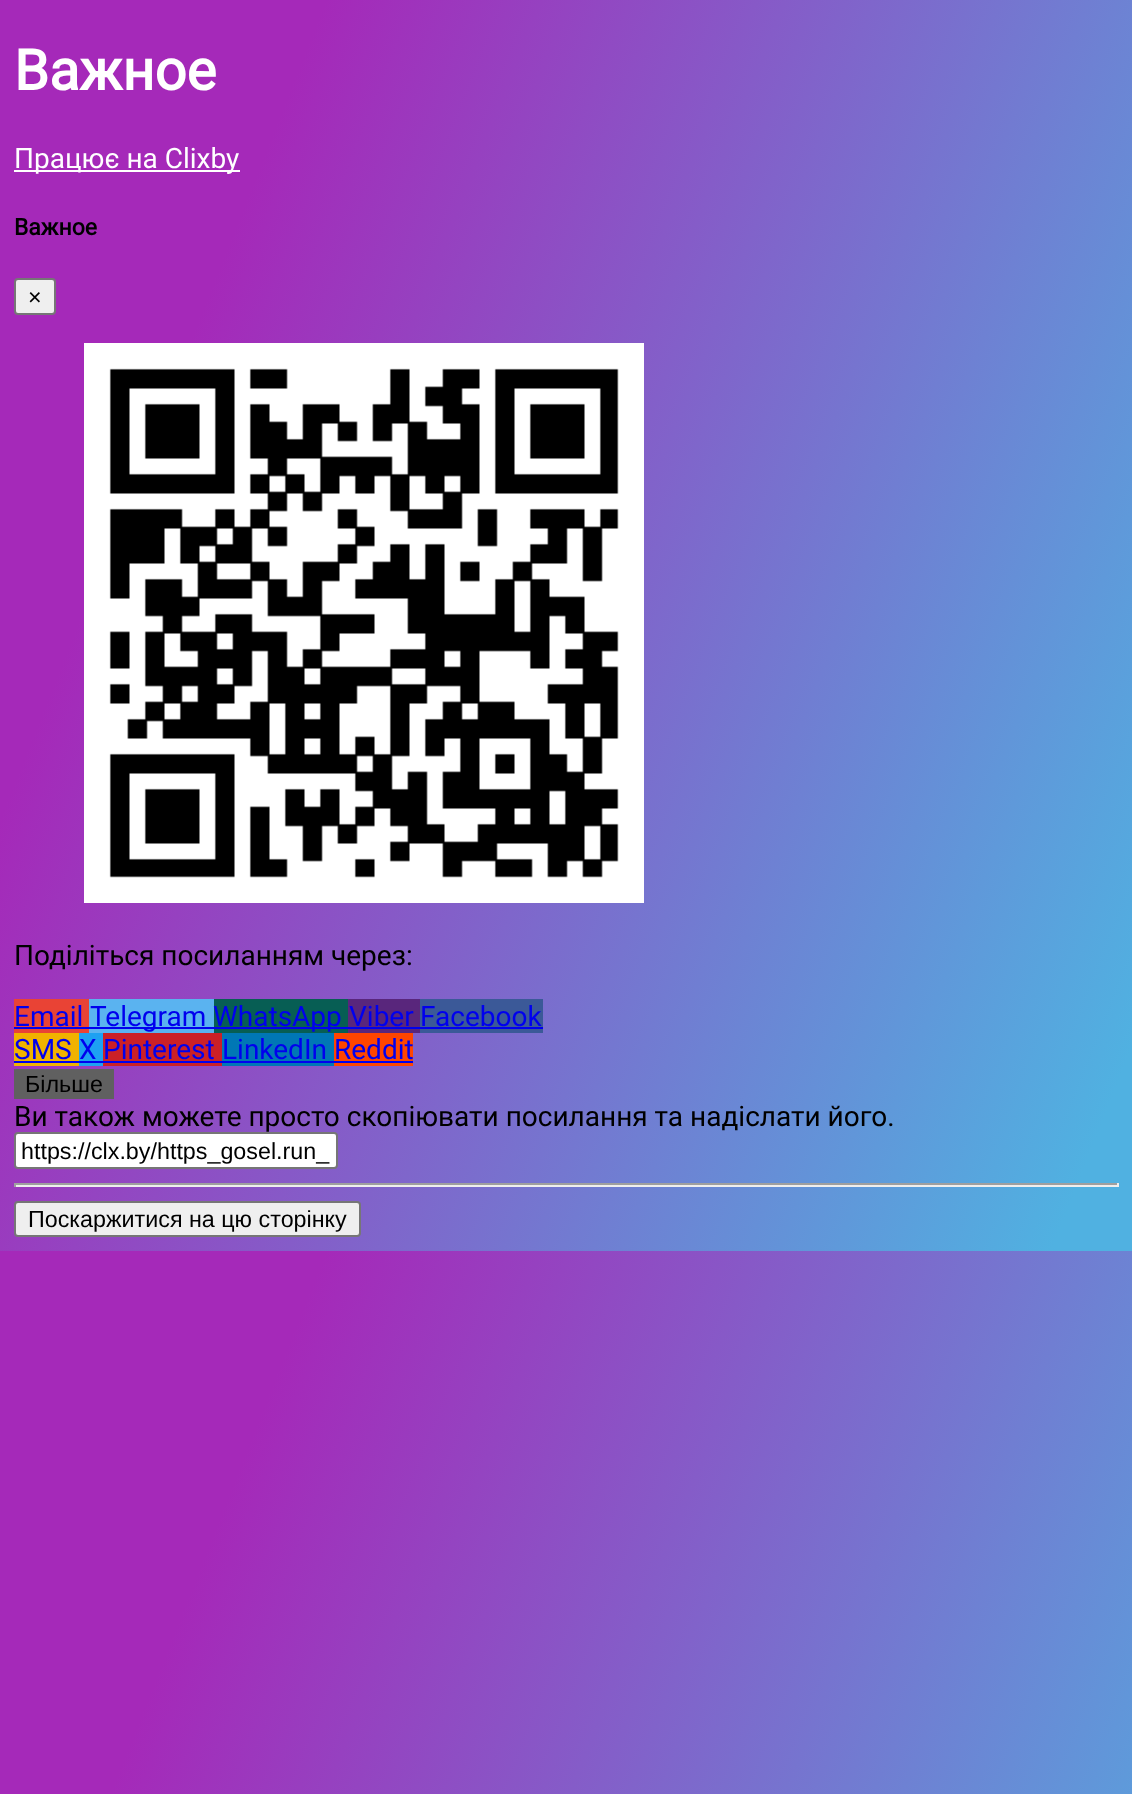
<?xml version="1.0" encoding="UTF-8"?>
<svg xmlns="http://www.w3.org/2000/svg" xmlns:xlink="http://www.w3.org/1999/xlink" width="1132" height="1794">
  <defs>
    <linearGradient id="g1" gradientUnits="userSpaceOnUse" x1="-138" y1="346" x2="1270" y2="906"><stop offset="0.2" stop-color="#a529b9" /><stop offset="0.95" stop-color="#50b1e1" /></linearGradient>
    <linearGradient id="g2" gradientUnits="userSpaceOnUse" x1="-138" y1="1597" x2="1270" y2="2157"><stop offset="0.2" stop-color="#a529b9" /><stop offset="0.95" stop-color="#50b1e1" /></linearGradient>
  </defs>
  <rect width="100%" height="100%" fill="#ffffff" />
  <rect width="1132" height="1251" fill="url(#g1)" />
  <rect y="1251" width="1132" height="543" fill="url(#g2)" />
  <rect x="14" y="170" width="226" height="2" fill="#ffffff" />
  <rect x="15" y="279" width="40" height="35" rx="3" fill="#efefef" stroke="#767676" stroke-width="2" />
  <image x="84" y="343" width="560" height="560" xlink:href="image1.png" />
  <rect x="14" y="999" width="75" height="34" fill="#e94335" />
  <rect x="14" y="1027" width="75" height="2" fill="#0000ee" />
  <rect x="89" y="999" width="125" height="34" fill="#5ab3f0" />
  <rect x="89" y="1027" width="125" height="2" fill="#0000ee" />
  <rect x="214" y="999" width="134" height="34" fill="#075e54" />
  <rect x="214" y="1027" width="134" height="2" fill="#0000ee" />
  <rect x="348" y="999" width="72" height="34" fill="#59267c" />
  <rect x="348" y="1027" width="72" height="2" fill="#0000ee" />
  <rect x="420" y="999" width="123" height="34" fill="#3b5998" />
  <rect x="420" y="1027" width="123" height="2" fill="#0000ee" />
  <rect x="14" y="1033" width="65" height="33" fill="#f1b200" />
  <rect x="14" y="1061" width="65" height="2" fill="#0000ee" />
  <rect x="79" y="1033" width="24" height="33" fill="#1da1f2" />
  <rect x="79" y="1061" width="24" height="2" fill="#0000ee" />
  <rect x="103" y="1033" width="119" height="33" fill="#cb2027" />
  <rect x="103" y="1061" width="119" height="2" fill="#0000ee" />
  <rect x="222" y="1033" width="112" height="33" fill="#0077b5" />
  <rect x="222" y="1061" width="112" height="2" fill="#0000ee" />
  <rect x="334" y="1033" width="79" height="33" fill="#ff4500" />
  <rect x="334" y="1061" width="79" height="2" fill="#0000ee" />
  <rect x="14" y="1069" width="100" height="30" fill="#606060" />
  <rect x="15" y="1133" width="322" height="35" rx="3" fill="#ffffff" stroke="#767676" stroke-width="2" />
  <rect x="14" y="1183" width="1104" height="2" fill="#9f9f9f" />
  <rect x="1117" y="1183" width="2" height="4" fill="#eeeeee" />
  <rect x="14" y="1185" width="1104" height="2" fill="#eeeeee" />
  <rect x="14" y="1183" width="2" height="4" fill="#9f9f9f" />
  <rect x="15" y="1202" width="345" height="34" rx="3" fill="#efefef" stroke="#767676" stroke-width="2" />
  <text x="14" y="90" style="font-family: Roboto; font-size: 56px; font-weight: bold; fill: #ffffff">Важное</text>
  <text x="14" y="168" style="font-family: Roboto; font-size: 28px; fill: #ffffff">Працює на Clixby</text>
  <text x="14" y="235" style="font-family: Roboto; font-size: 23px; font-weight: bold; fill: #000000">Важное</text>
  <text x="28" y="305" style="font-family: Liberation Sans; font-size: 23.3px; fill: #000000">×</text>
  <text x="14" y="965" style="font-family: Roboto; font-size: 28px; fill: #000000">Поділіться посиланням через:</text>
  <text x="14" y="1026" style="font-family: Roboto; font-size: 28px; fill: #0000ee">Email</text>
  <text x="90" y="1026" style="font-family: Roboto; font-size: 28px; fill: #0000ee">Telegram</text>
  <text x="213" y="1026" style="font-family: Roboto; font-size: 28px; fill: #0000ee">WhatsApp</text>
  <text x="349" y="1026" style="font-family: Roboto; font-size: 28px; fill: #0000ee">Viber</text>
  <text x="420" y="1026" style="font-family: Roboto; font-size: 28px; fill: #0000ee">Facebook</text>
  <text x="14" y="1059" style="font-family: Roboto; font-size: 28px; fill: #0000ee">SMS</text>
  <text x="79" y="1059" style="font-family: Roboto; font-size: 28px; fill: #0000ee">X</text>
  <text x="103" y="1059" style="font-family: Roboto; font-size: 28px; fill: #0000ee">Pinterest</text>
  <text x="222" y="1059" style="font-family: Roboto; font-size: 28px; fill: #0000ee">LinkedIn</text>
  <text x="334" y="1059" style="font-family: Roboto; font-size: 28px; fill: #0000ee">Reddit</text>
  <text x="25" y="1092" style="font-family: Liberation Sans; font-size: 23.3px; fill: #000000">Більше</text>
  <text x="14" y="1126" style="font-family: Roboto; font-size: 28px; fill: #000000">Ви також можете просто скопіювати посилання та надіслати його.</text>
  <text x="21" y="1159" style="font-family: Liberation Sans; font-size: 23.3px; fill: #000000">https://clx.by/https_gosel.run_</text>
  <text x="28" y="1227" style="font-family: Liberation Sans; font-size: 23.3px; fill: #000000">Поскаржитися на цю сторінку</text>
</svg>
